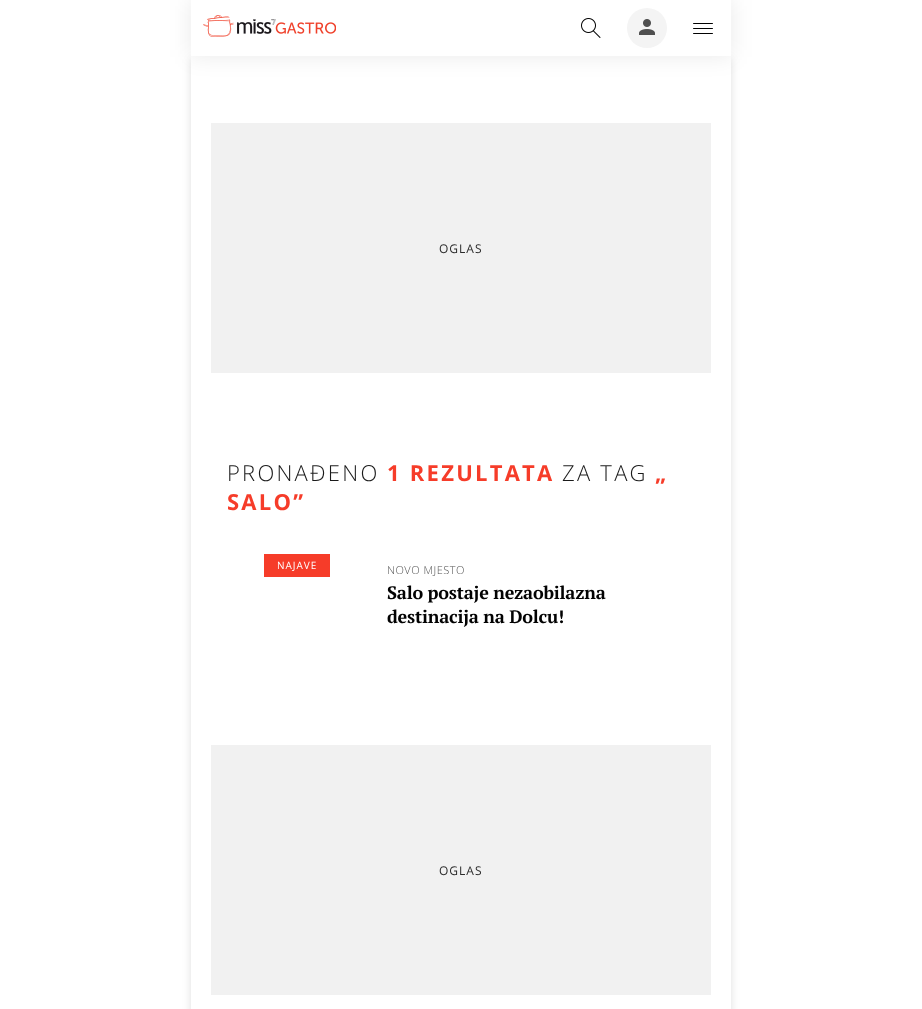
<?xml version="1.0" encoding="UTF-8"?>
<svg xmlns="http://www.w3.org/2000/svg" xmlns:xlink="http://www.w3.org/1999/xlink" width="922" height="1009">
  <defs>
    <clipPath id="clip1"><path d="M 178 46 h 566 v 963 h -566 z m 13 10 h 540 v 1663 h -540 z" clip-rule="evenodd" /></clipPath>
  </defs>
  <rect width="100%" height="100%" fill="#ffffff" />
  <rect x="190" y="-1" width="542" height="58" fill="#000000" fill-opacity="0.08" filter="blur(10.5px)" />
  <g clip-path="url(#clip1)">
    <rect x="191" y="59" width="540" height="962" fill="#000000" fill-opacity="0.13" filter="blur(4px)" />
  </g>
  <rect x="191" width="540" height="56" fill="#ffffff" />
  <image x="203" y="15" width="133" height="22" xlink:href="image1.png" />
  <image x="581" y="18" width="20" height="20" xlink:href="image2.png" />
  <circle cx="647" cy="28" r="20" fill="#f4f4f4" />
  <image x="639" y="19" width="16" height="16" xlink:href="image3.png" />
  <image x="693" y="23" width="20" height="11" xlink:href="image4.png" />
  <rect x="211" y="123" width="500" height="250" fill="#f1f1f1" />
  <rect x="264" y="554" width="66" height="23" fill="#f63c29" />
  <rect x="211" y="745" width="500" height="250" fill="#f1f1f1" />
  <text x="439" y="253" style="font-family: Open Sans; font-size: 12px; letter-spacing: 1px; fill: #2b2b2b">OGLAS</text>
  <text x="227" y="481" style="font-family: Open Sans; font-size: 22px; font-weight: 300; letter-spacing: 2.25px; fill: #1a1a1a">PRONAĐENO</text>
  <text x="387" y="481" style="font-family: Open Sans; font-size: 22px; font-weight: bold; letter-spacing: 2.25px; fill: #f63c29">1 REZULTATA</text>
  <text x="562" y="481" style="font-family: Open Sans; font-size: 22px; font-weight: 300; letter-spacing: 2.25px; fill: #1a1a1a">ZA TAG</text>
  <text x="655" y="481" style="font-family: Open Sans; font-size: 22px; font-weight: bold; letter-spacing: 2.25px; fill: #f63c29">„</text>
  <text x="227" y="510" style="font-family: Open Sans; font-size: 22px; font-weight: bold; letter-spacing: 2.25px; fill: #f63c29">SALO”</text>
  <text x="277" y="569" style="font-family: Open Sans; font-size: 10px; letter-spacing: 1px; fill: #ffffff">NAJAVE</text>
  <text x="387" y="574" style="font-family: Open Sans; font-size: 11px; font-weight: 300; letter-spacing: 0.5px; fill: #4f4f4f">NOVO MJESTO</text>
  <text x="387" y="599" style="font-family: PT Serif; font-size: 18px; font-weight: bold; letter-spacing: -0.2px; fill: #020202">Salo postaje nezaobilazna</text>
  <text x="387" y="623" style="font-family: PT Serif; font-size: 18px; font-weight: bold; letter-spacing: -0.2px; fill: #020202">destinacija na Dolcu!</text>
  <text x="439" y="875" style="font-family: Open Sans; font-size: 12px; letter-spacing: 1px; fill: #2b2b2b">OGLAS</text>
</svg>
